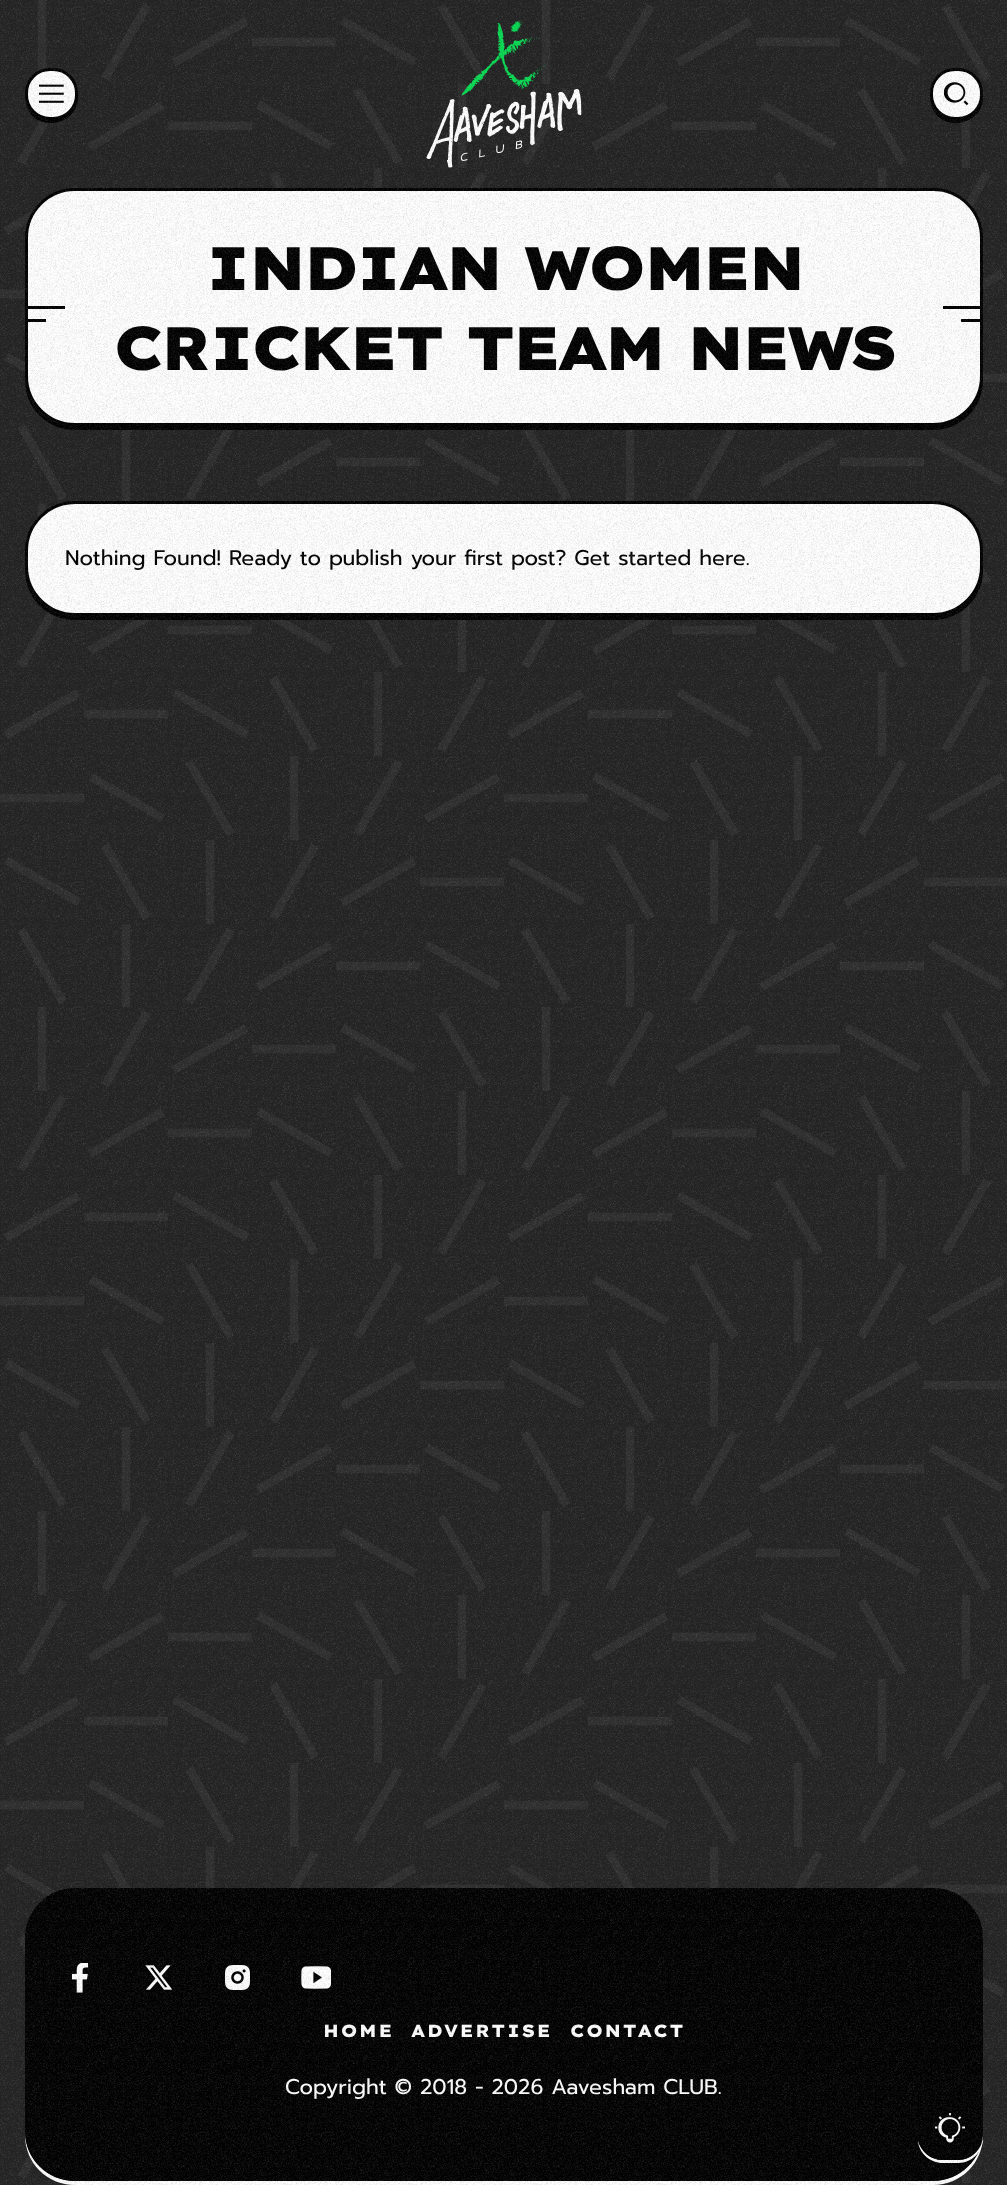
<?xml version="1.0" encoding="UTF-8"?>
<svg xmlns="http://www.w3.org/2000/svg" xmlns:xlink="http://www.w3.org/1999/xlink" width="1007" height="2185">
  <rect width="100%" height="100%" fill="#232323" />
  <image x="0" y="0" width="1007" height="2183" xlink:href="image1.png" />
  <path d="M 25 95 c 0 43 62 33 52 -6 c 6 39 -52 41 -52 6 z" fill="#000000" />
  <rect x="26.5" y="69.5" width="50" height="49" rx="23.5" fill="#ffffff" stroke="#000000" stroke-width="3" />
  <image x="39" y="84" width="25" height="19" xlink:href="image3.png" />
  <image x="426" y="20" width="156" height="148" xlink:href="image4.png" />
  <path d="M 930 95 c 0 43 62 33 52 -6 c 6 39 -52 41 -52 6 z" fill="#000000" />
  <rect x="931.5" y="69.5" width="50" height="49" rx="23.5" fill="#ffffff" stroke="#000000" stroke-width="3" />
  <image x="944" y="82" width="25" height="24" xlink:href="image5.png" />
  <path d="M 25 376 v 4 c 0 28 22 50 50 50 h 858 c 28 0 50 -22 50 -50 v -139 l -1 -9 v 144 c 0 28 -22 50 -50 50 h -857 c -28 0 -50 -22 -50 -50 z" fill="#000000" />
  <rect x="26.5" y="189.5" width="955" height="235" rx="48.5" fill="#ffffff" stroke="#000000" stroke-width="3" />
  <rect x="28" y="306" width="37" height="3" fill="#000000" />
  <rect x="28" y="319" width="18" height="3" fill="#000000" />
  <rect x="943" y="306" width="37" height="3" fill="#000000" />
  <rect x="961" y="319" width="19" height="3" fill="#000000" />
  <path d="M 25 566 v 4 c 0 28 22 50 50 50 h 858 c 28 0 50 -22 50 -50 v -15 l -1 -9 v 20 c 0 28 -22 50 -50 50 h -857 c -28 0 -50 -22 -50 -50 z" fill="#000000" />
  <rect x="26.5" y="502.5" width="955" height="112" rx="48.5" fill="#ffffff" stroke="#000000" stroke-width="3" />
  <path d="M 25 2131 v 4 c 0 28 22 50 50 50 h 858 c 28 0 50 -22 50 -50 v -194 l -1 -9 v 199 c 0 28 -22 50 -50 50 h -857 c -28 0 -50 -22 -50 -50 z" fill="#ffffff" />
  <rect x="26.5" y="1889.5" width="955" height="290" rx="48.5" fill="#000000" stroke="#000000" stroke-width="3" />
  <image x="71" y="1963" width="18" height="30" xlink:href="image6.png" />
  <image x="145" y="1965" width="28" height="25" xlink:href="image7.png" />
  <image x="225" y="1965" width="25" height="25" xlink:href="image8.png" />
  <image x="301" y="1966" width="30" height="23" xlink:href="image9.png" />
  <path d="M 918 2141 c 1 12 12 22 25 22 h 15 c 14 0 25 -11 25 -25 v -15 l -1 -6 v 18 c 0 14 -11 25 -24 25 h -16 c -11 0 -21 -8 -24 -19 z" fill="#ffffff" />
  <rect x="919.5" y="2096.5" width="62" height="62" rx="23.5" fill="#000000" stroke="#000000" stroke-width="3" />
  <image x="935" y="2113" width="30" height="30" xlink:href="image10.png" />
  <text x="205" y="290" style="font-family: Lexend Exa; font-size: 61.25px; font-weight: 900; letter-spacing: -3.1px; fill: #000000">INDIAN WOMEN</text>
  <text x="113" y="370" style="font-family: Lexend Exa; font-size: 61.25px; font-weight: 900; letter-spacing: -3.1px; fill: #000000">CRICKET TEAM NEWS</text>
  <text x="65" y="565" style="font-family: Prompt; font-size: 21.25px; fill: #000000">Nothing Found! Ready to publish your first post? Get started here.</text>
  <text x="323" y="2037" style="font-family: Lexend Exa; font-size: 17.5px; font-weight: 800; letter-spacing: 1.75px; fill: #ffffff">HOME</text>
  <text x="411" y="2037" style="font-family: Lexend Exa; font-size: 17.5px; font-weight: 800; letter-spacing: 1.75px; fill: #ffffff">ADVERTISE</text>
  <text x="570" y="2037" style="font-family: Lexend Exa; font-size: 17.5px; font-weight: 800; letter-spacing: 1.75px; fill: #ffffff">CONTACT</text>
  <text x="285" y="2094" style="font-family: Prompt; font-size: 21.25px; fill: #ffffff">Copyright © 2018 - 2026 Aavesham CLUB.</text>
  <image x="0" y="0" width="1007" height="2185" xlink:href="image2.png" />
</svg>
